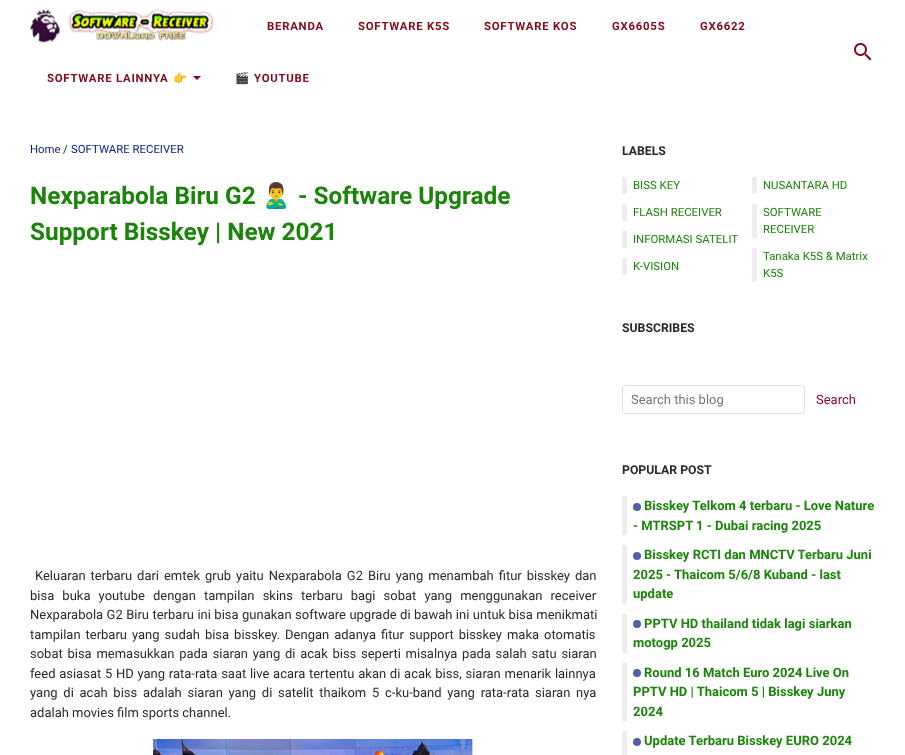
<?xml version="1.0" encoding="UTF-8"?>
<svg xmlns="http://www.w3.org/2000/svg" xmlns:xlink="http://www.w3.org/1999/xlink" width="905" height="755">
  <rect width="100%" height="100%" fill="#ffffff" />
  <image x="30" y="9" width="184" height="34" xlink:href="image1.png" />
  <path d="M 193 76 h 8 l -4 4 z" fill="#840b1b" />
  <image x="854" y="43" width="18" height="18" xlink:href="image2.png" />
  <image x="153" y="739" width="320" height="16" xlink:href="image3.png" />
  <rect x="622" y="177" width="5" height="17" fill="#ededed" />
  <rect x="752" y="177" width="5" height="17" fill="#ededed" />
  <rect x="622" y="204" width="5" height="17" fill="#ededed" />
  <rect x="752" y="204" width="5" height="34" fill="#ededed" />
  <rect x="622" y="231" width="5" height="17" fill="#ededed" />
  <rect x="622" y="258" width="5" height="17" fill="#ededed" />
  <rect x="752" y="248" width="5" height="34" fill="#ededed" />
  <rect x="622.5" y="385.5" width="182" height="28" rx="3.5" fill="none" stroke="#e0e0e0" />
  <rect x="622" y="496" width="5" height="39" fill="#ededed" />
  <circle cx="637" cy="507" r="4" fill="#545fa9" />
  <rect x="622" y="545" width="5" height="59" fill="#ededed" />
  <circle cx="637" cy="556" r="4" fill="#545fa9" />
  <rect x="622" y="614" width="5" height="39" fill="#ededed" />
  <circle cx="637" cy="624" r="4" fill="#545fa9" />
  <rect x="622" y="663" width="5" height="58" fill="#ededed" />
  <circle cx="637" cy="673" r="4" fill="#545fa9" />
  <rect x="622" y="731" width="5" height="24" fill="#ededed" />
  <circle cx="637" cy="742" r="4" fill="#545fa9" />
  <text x="267" y="30" style="font-family: Roboto; font-size: 11.4px; font-weight: bold; letter-spacing: 0.75px; fill: #840b1b">BERANDA</text>
  <text x="358" y="30" style="font-family: Roboto; font-size: 11.4px; font-weight: bold; letter-spacing: 0.75px; fill: #840b1b">SOFTWARE K5S</text>
  <text x="484" y="30" style="font-family: Roboto; font-size: 11.4px; font-weight: bold; letter-spacing: 0.75px; fill: #840b1b">SOFTWARE KOS</text>
  <text x="612" y="30" style="font-family: Roboto; font-size: 11.4px; font-weight: bold; letter-spacing: 0.75px; fill: #840b1b">GX6605S</text>
  <text x="700" y="30" style="font-family: Roboto; font-size: 11.4px; font-weight: bold; letter-spacing: 0.75px; fill: #840b1b">GX6622</text>
  <text x="47" y="82" style="font-family: Roboto; font-size: 11.4px; font-weight: bold; letter-spacing: 0.75px; fill: #840b1b">SOFTWARE LAINNYA</text>
  <text x="173" y="82" style="font-family: Noto Color Emoji; font-size: 11.4px; font-weight: bold; letter-spacing: 0.75px; fill: #840b1b">👉</text>
  <text x="235" y="82" style="font-family: Noto Color Emoji; font-size: 11.4px; font-weight: bold; letter-spacing: 0.75px; fill: #840b1b">🎬</text>
  <text x="254" y="82" style="font-family: Roboto; font-size: 11.4px; font-weight: bold; letter-spacing: 0.75px; fill: #840b1b">YOUTUBE</text>
  <text x="30" y="153" style="font-family: Roboto; font-size: 11.4px; fill: #0b1b84">Home</text>
  <text x="63" y="153" style="font-family: Roboto; font-size: 11.4px; fill: #292929">/</text>
  <text x="71" y="153" style="font-family: Roboto; font-size: 11.4px; fill: #0b1b84">SOFTWARE RECEIVER</text>
  <text x="30" y="204" style="font-family: Roboto; font-size: 24.4px; font-weight: bold; fill: #1b840b">Nexparabola Biru G2</text>
  <text x="261" y="204" style="font-family: Noto Color Emoji; font-size: 24.4px; font-weight: bold; fill: #1b840b">🙎‍♂️</text>
  <text x="298" y="204" style="font-family: Roboto; font-size: 24.4px; font-weight: bold; fill: #1b840b">- Software Upgrade</text>
  <text x="30" y="240" style="font-family: Roboto; font-size: 24.4px; font-weight: bold; fill: #1b840b">Support Bisskey | New 2021</text>
  <text x="35" y="580" word-spacing="1.75" style="font-family: Roboto; font-size: 13px; fill: #292929">Keluaran terbaru dari emtek grub yaitu Nexparabola G2 Biru yang menambah fitur bisskey dan</text>
  <text x="30" y="600" word-spacing="4.9" style="font-family: Roboto; font-size: 13px; fill: #292929">bisa buka youtube dengan tampilan skins terbaru bagi sobat yang menggunakan receiver</text>
  <text x="30" y="619" word-spacing="0.25" style="font-family: Roboto; font-size: 13px; fill: #292929">Nexparabola G2 Biru terbaru ini bisa gunakan software upgrade di bawah ini untuk bisa menikmati</text>
  <text x="30" y="639" word-spacing="1.75" style="font-family: Roboto; font-size: 13px; fill: #292929">tampilan terbaru yang sudah bisa bisskey. Dengan adanya fitur support bisskey maka otomatis</text>
  <text x="30" y="658" word-spacing="1.5" style="font-family: Roboto; font-size: 13px; fill: #292929">sobat bisa memasukkan pada siaran yang di acak biss seperti misalnya pada salah satu siaran</text>
  <text x="30" y="678" word-spacing="0.5" style="font-family: Roboto; font-size: 13px; fill: #292929">feed asiasat 5 HD yang rata-rata saat live acara tertentu akan di acak biss, siaran menarik lainnya</text>
  <text x="30" y="697" word-spacing="2.5" style="font-family: Roboto; font-size: 13px; fill: #292929">yang di acah biss adalah siaran yang di satelit thaikom 5 c-ku-band yang rata-rata siaran nya</text>
  <text x="30" y="717" style="font-family: Roboto; font-size: 13px; fill: #292929">adalah movies film sports channel.</text>
  <text x="622" y="155" style="font-family: Roboto; font-size: 12.25px; font-weight: bold; fill: #292929">LABELS</text>
  <text x="633" y="189" style="font-family: Roboto; font-size: 11.4px; fill: #1b840b">BISS KEY</text>
  <text x="763" y="189" style="font-family: Roboto; font-size: 11.4px; fill: #1b840b">NUSANTARA HD</text>
  <text x="633" y="216" style="font-family: Roboto; font-size: 11.4px; fill: #1b840b">FLASH RECEIVER</text>
  <text x="763" y="216" style="font-family: Roboto; font-size: 11.4px; fill: #1b840b">SOFTWARE</text>
  <text x="763" y="233" style="font-family: Roboto; font-size: 11.4px; fill: #1b840b">RECEIVER</text>
  <text x="633" y="243" style="font-family: Roboto; font-size: 11.4px; fill: #1b840b">INFORMASI SATELIT</text>
  <text x="633" y="270" style="font-family: Roboto; font-size: 11.4px; fill: #1b840b">K-VISION</text>
  <text x="763" y="260" style="font-family: Roboto; font-size: 11.4px; fill: #1b840b">Tanaka K5S &amp; Matrix</text>
  <text x="763" y="277" style="font-family: Roboto; font-size: 11.4px; fill: #1b840b">K5S</text>
  <text x="622" y="332" style="font-family: Roboto; font-size: 12.25px; font-weight: bold; fill: #292929">SUBSCRIBES</text>
  <text x="631" y="404" style="font-family: Roboto; font-size: 13px; fill: #757575">Search this blog</text>
  <text x="816" y="404" style="font-family: Roboto; font-size: 13px; fill: #840b1b">Search</text>
  <text x="622" y="474" style="font-family: Roboto; font-size: 12.25px; font-weight: bold; fill: #292929">POPULAR POST</text>
  <text x="644" y="510" style="font-family: Roboto; font-size: 13px; font-weight: bold; fill: #1b840b">Bisskey Telkom 4 terbaru - Love Nature</text>
  <text x="633" y="530" style="font-family: Roboto; font-size: 13px; font-weight: bold; fill: #1b840b">- MTRSPT 1 - Dubai racing 2025</text>
  <text x="644" y="559" style="font-family: Roboto; font-size: 13px; font-weight: bold; fill: #1b840b">Bisskey RCTI dan MNCTV Terbaru Juni</text>
  <text x="633" y="579" style="font-family: Roboto; font-size: 13px; font-weight: bold; fill: #1b840b">2025 - Thaicom 5/6/8 Kuband - last</text>
  <text x="633" y="598" style="font-family: Roboto; font-size: 13px; font-weight: bold; fill: #1b840b">update</text>
  <text x="644" y="628" style="font-family: Roboto; font-size: 13px; font-weight: bold; fill: #1b840b">PPTV HD thailand tidak lagi siarkan</text>
  <text x="633" y="647" style="font-family: Roboto; font-size: 13px; font-weight: bold; fill: #1b840b">motogp 2025</text>
  <text x="644" y="677" style="font-family: Roboto; font-size: 13px; font-weight: bold; fill: #1b840b">Round 16 Match Euro 2024 Live On</text>
  <text x="633" y="696" style="font-family: Roboto; font-size: 13px; font-weight: bold; fill: #1b840b">PPTV HD | Thaicom 5 | Bisskey Juny</text>
  <text x="633" y="716" style="font-family: Roboto; font-size: 13px; font-weight: bold; fill: #1b840b">2024</text>
  <text x="644" y="745" style="font-family: Roboto; font-size: 13px; font-weight: bold; fill: #1b840b">Update Terbaru Bisskey EURO 2024</text>
</svg>
